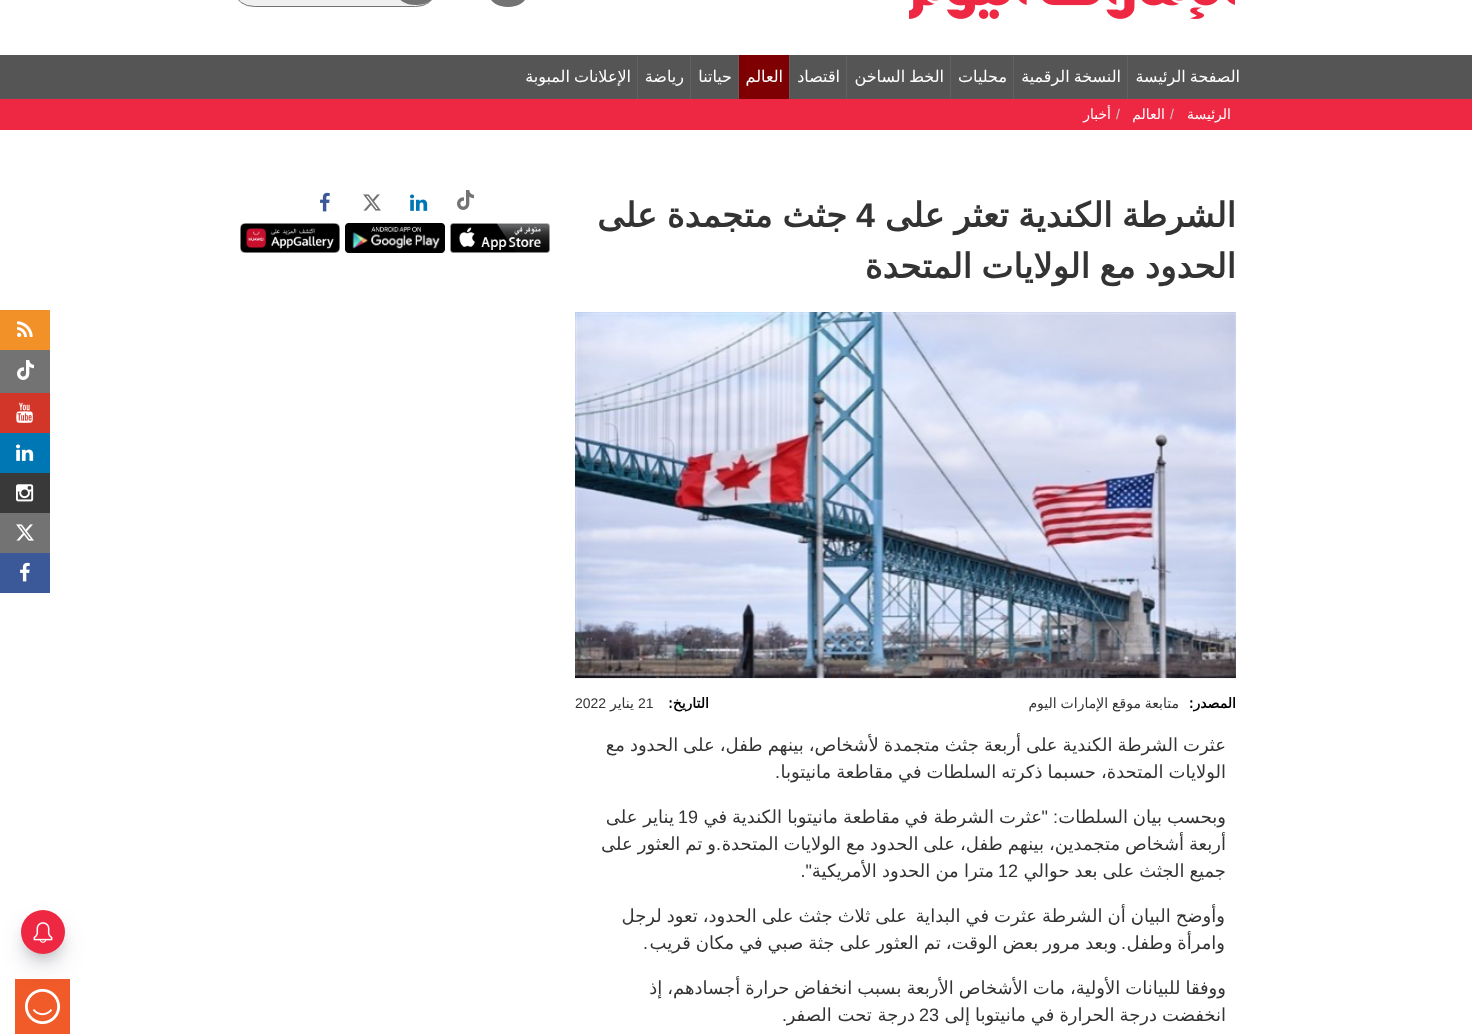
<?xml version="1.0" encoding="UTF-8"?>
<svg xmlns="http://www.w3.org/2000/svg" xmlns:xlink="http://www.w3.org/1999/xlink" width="1472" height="1034">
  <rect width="100%" height="100%" fill="#ffffff" />
  <image x="909" y="0" width="326" height="19" xlink:href="image1.png" />
  <rect x="489" y="-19" width="38" height="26" rx="19" fill="#737373" />
  <rect x="235.5" y="-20.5" width="199" height="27" rx="19" fill="#f0f0f0" stroke="#737373" />
  <rect x="397" y="-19" width="38" height="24" rx="18.5" fill="#737373" />
  <rect y="310" width="50" height="40" fill="#f29128" />
  <image x="17" y="321" width="16" height="16" xlink:href="image2.png" />
  <rect y="350" width="50" height="43" fill="#737373" />
  <image x="17" y="360" width="17" height="20" xlink:href="image3.png" />
  <rect y="393" width="50" height="40" fill="#d23628" />
  <image x="16" y="402" width="17" height="21" xlink:href="image4.png" />
  <rect y="433" width="50" height="40" fill="#0077b5" />
  <image x="16" y="444" width="18" height="17" xlink:href="image5.png" />
  <rect y="473" width="50" height="40" fill="#393939" />
  <image x="16" y="484" width="18" height="18" xlink:href="image6.png" />
  <rect y="513" width="50" height="40" fill="#737373" />
  <image x="16" y="524" width="18" height="17" xlink:href="image7.png" />
  <rect y="553" width="50" height="40" fill="#3b5998" />
  <image x="20" y="562" width="10" height="20" xlink:href="image8.png" />
  <rect y="55" width="1472" height="44" fill="#555555" />
  <rect x="1127" y="55" width="1" height="44" fill="#616161" />
  <rect x="1013" y="55" width="1" height="44" fill="#616161" />
  <rect x="950" y="55" width="1" height="44" fill="#616161" />
  <rect x="846" y="55" width="1" height="44" fill="#616161" />
  <rect x="739" y="55" width="50" height="44" fill="#7e0003" />
  <rect x="789" y="55" width="1" height="44" fill="#616161" />
  <rect x="738" y="55" width="1" height="44" fill="#616161" />
  <rect x="690" y="55" width="1" height="44" fill="#616161" />
  <rect x="637" y="55" width="1" height="44" fill="#616161" />
  <rect y="99" width="1472" height="31" fill="#ee2743" />
  <image x="575" y="312" width="661" height="367" xlink:href="image9.png" />
  <image x="457" y="190" width="17" height="20" xlink:href="image10.png" />
  <image x="410" y="194" width="18" height="17" xlink:href="image11.png" />
  <image x="363" y="194" width="18" height="17" xlink:href="image12.png" />
  <image x="320" y="192" width="10" height="20" xlink:href="image13.png" />
  <image x="450" y="223" width="100" height="30" xlink:href="image14.png" />
  <image x="345" y="223" width="100" height="30" xlink:href="image15.png" />
  <image x="240" y="223" width="100" height="30" xlink:href="image16.png" />
  <rect x="29" y="926" width="28" height="28" rx="14" fill="#000000" fill-opacity="0.3" filter="blur(8px)" />
  <rect x="15" y="979" width="55" height="55" fill="#f15a29" />
  <image x="25" y="989" width="35" height="35" xlink:href="image18.png" />
  <rect x="26" y="928" width="34" height="34" rx="17" fill="#32325d" fill-opacity="0.25" filter="blur(13.5px)" />
  <circle cx="43" cy="932" r="22" fill="#ee2743" />
  <image x="33" y="922" width="20" height="21" xlink:href="image17.png" />
  <text x="1240" y="82" word-spacing="-1" style="font-family: DejaVu Sans; font-size: 16px; direction: rtl; fill: #ffffff">الصفحة الرئيسة</text>
  <text x="1121" y="82" word-spacing="-1" style="font-family: DejaVu Sans; font-size: 16px; direction: rtl; fill: #ffffff">النسخة الرقمية</text>
  <text x="1007" y="82" style="font-family: DejaVu Sans; font-size: 16px; direction: rtl; fill: #ffffff">محليات</text>
  <text x="944" y="82" word-spacing="-1" style="font-family: DejaVu Sans; font-size: 16px; direction: rtl; fill: #ffffff">الخط الساخن</text>
  <text x="840" y="82" style="font-family: DejaVu Sans; font-size: 16px; direction: rtl; fill: #ffffff">اقتصاد</text>
  <text x="783" y="82" style="font-family: DejaVu Sans; font-size: 16px; direction: rtl; fill: #ffffff">العالم</text>
  <text x="732" y="82" style="font-family: DejaVu Sans; font-size: 16px; direction: rtl; fill: #ffffff">حياتنا</text>
  <text x="684" y="82" style="font-family: DejaVu Sans; font-size: 16px; direction: rtl; fill: #ffffff">رياضة</text>
  <text x="631" y="82" word-spacing="-1" style="font-family: DejaVu Sans; font-size: 16px; direction: rtl; fill: #ffffff">الإعلانات المبوبة</text>
  <text x="1231" y="119" style="font-family: DejaVu Sans; font-size: 14px; direction: rtl; fill: #ffffff">الرئيسة</text>
  <text x="1170" y="119" style="font-family: Liberation Sans; font-size: 14px; fill: #cccccc">/</text>
  <text x="1165" y="119" style="font-family: DejaVu Sans; font-size: 14px; direction: rtl; fill: #ffffff">العالم</text>
  <text x="1116" y="119" style="font-family: Liberation Sans; font-size: 14px; fill: #cccccc">/</text>
  <text x="1111" y="119" style="font-family: DejaVu Sans; font-size: 14px; direction: rtl; fill: #ffffff">أخبار</text>
  <text x="1236" y="227" word-spacing="-1.5" style="font-family: DejaVu Sans; font-size: 34px; font-weight: bold; direction: rtl; fill: #333333">الشرطة الكندية تعثر على</text>
  <text x="856" y="227" style="font-family: Liberation Sans; font-size: 34px; font-weight: bold; fill: #333333">4</text>
  <text x="847" y="227" word-spacing="-1" style="font-family: DejaVu Sans; font-size: 34px; font-weight: bold; direction: rtl; fill: #333333">جثث متجمدة على</text>
  <text x="1236" y="278" word-spacing="-1.5" style="font-family: DejaVu Sans; font-size: 34px; font-weight: bold; direction: rtl; fill: #333333">الحدود مع الولايات المتحدة</text>
  <text x="1236" y="708" style="font-family: DejaVu Sans; font-size: 14px; font-weight: bold; direction: rtl; fill: #000000">المصدر:</text>
  <text x="1179" y="708" word-spacing="-0.5" style="font-family: DejaVu Sans; font-size: 14px; direction: rtl; fill: #333333">متابعة موقع الإمارات اليوم</text>
  <text x="709" y="708" style="font-family: DejaVu Sans; font-size: 14px; font-weight: bold; direction: rtl; fill: #000000">التاريخ:</text>
  <text x="638" y="708" style="font-family: Liberation Sans; font-size: 14px; fill: #333333">21</text>
  <text x="634" y="708" style="font-family: DejaVu Sans; font-size: 14px; direction: rtl; fill: #333333">يناير</text>
  <text x="575" y="708" style="font-family: Liberation Sans; font-size: 14px; fill: #333333">2022</text>
  <text x="1226" y="751" word-spacing="-0.75" style="font-family: DejaVu Sans; font-size: 18px; direction: rtl; fill: #333333">عثرت الشرطة الكندية على أربعة جثث متجمدة لأشخاص، بينهم طفل، على الحدود مع</text>
  <text x="1226" y="778" word-spacing="-0.75" style="font-family: DejaVu Sans; font-size: 18px; direction: rtl; fill: #333333">الولايات المتحدة، حسبما ذكرته السلطات في مقاطعة مانيتوبا</text>
  <text x="780" y="778" style="font-family: Liberation Sans; font-size: 18px; direction: rtl; fill: #333333">.</text>
  <text x="1226" y="823" style="font-family: DejaVu Sans; font-size: 18px; direction: rtl; fill: #333333">وبحسب</text>
  <text x="1162" y="823" style="font-family: DejaVu Sans; font-size: 18px; direction: rtl; fill: #333333">بيان</text>
  <text x="1128" y="823" style="font-family: DejaVu Sans; font-size: 18px; direction: rtl; fill: #333333">السلطات</text>
  <text x="1058" y="823" style="font-family: Liberation Sans; font-size: 18px; direction: rtl; fill: #333333">: "</text>
  <text x="1042" y="823" style="font-family: DejaVu Sans; font-size: 18px; direction: rtl; fill: #333333">عثرت</text>
  <text x="994" y="823" style="font-family: DejaVu Sans; font-size: 18px; direction: rtl; fill: #333333">الشرطة</text>
  <text x="928" y="823" style="font-family: DejaVu Sans; font-size: 18px; direction: rtl; fill: #333333">في</text>
  <text x="900" y="823" style="font-family: DejaVu Sans; font-size: 18px; direction: rtl; fill: #333333">مقاطعة</text>
  <text x="838" y="823" style="font-family: DejaVu Sans; font-size: 18px; direction: rtl; fill: #333333">مانيتوبا</text>
  <text x="782" y="823" style="font-family: DejaVu Sans; font-size: 18px; direction: rtl; fill: #333333">الكندية</text>
  <text x="727" y="823" style="font-family: DejaVu Sans; font-size: 18px; direction: rtl; fill: #333333">في</text>
  <text x="678" y="823" style="font-family: Liberation Sans; font-size: 18px; fill: #333333">19</text>
  <text x="674" y="823" style="font-family: DejaVu Sans; font-size: 18px; direction: rtl; fill: #333333">يناير على</text>
  <text x="1226" y="850" word-spacing="-0.75" style="font-family: DejaVu Sans; font-size: 18px; direction: rtl; fill: #333333">أربعة أشخاص متجمدين، بينهم طفل، على الحدود مع الولايات المتحدة</text>
  <text x="721" y="850" style="font-family: Liberation Sans; font-size: 18px; direction: rtl; fill: #333333">.</text>
  <text x="716" y="850" word-spacing="-0.75" style="font-family: DejaVu Sans; font-size: 18px; direction: rtl; fill: #333333">و تم العثور على</text>
  <text x="1226" y="877" word-spacing="-0.75" style="font-family: DejaVu Sans; font-size: 18px; direction: rtl; fill: #333333">جميع الجثث على بعد حوالي</text>
  <text x="998" y="877" style="font-family: Liberation Sans; font-size: 18px; fill: #333333">12</text>
  <text x="994" y="877" word-spacing="-0.5" style="font-family: DejaVu Sans; font-size: 18px; direction: rtl; fill: #333333">مترا من الحدود الأمريكية</text>
  <text x="812" y="877" style="font-family: Liberation Sans; font-size: 18px; direction: rtl; fill: #333333">".</text>
  <text x="1225" y="922" word-spacing="-0.75" style="font-family: DejaVu Sans; font-size: 18px; direction: rtl; fill: #333333">وأوضح البيان أن الشرطة عثرت في البداية</text>
  <text x="907" y="922" word-spacing="-0.75" style="font-family: DejaVu Sans; font-size: 18px; direction: rtl; fill: #333333">على ثلاث جثث على الحدود، تعود لرجل</text>
  <text x="1225" y="949" word-spacing="-0.75" style="font-family: DejaVu Sans; font-size: 18px; direction: rtl; fill: #333333">وامرأة وطفل</text>
  <text x="1117" y="949" word-spacing="-0.75" style="font-family: DejaVu Sans; font-size: 18px; direction: rtl; fill: #333333">وبعد مرور بعض الوقت، تم العثور على جثة صبي في مكان قريب</text>
  <text x="1126" y="949" style="font-family: Liberation Sans; font-size: 18px; direction: rtl; fill: #333333">.</text>
  <text x="648" y="949" style="font-family: Liberation Sans; font-size: 18px; direction: rtl; fill: #333333">.</text>
  <text x="1226" y="994" word-spacing="-0.75" style="font-family: DejaVu Sans; font-size: 18px; direction: rtl; fill: #333333">ووفقا للبيانات الأولية، مات الأشخاص الأربعة بسبب انخفاض حرارة أجسادهم، إذ</text>
  <text x="1226" y="1021" word-spacing="-0.75" style="font-family: DejaVu Sans; font-size: 18px; direction: rtl; fill: #333333">انخفضت درجة الحرارة في مانيتوبا إلى</text>
  <text x="919" y="1021" style="font-family: Liberation Sans; font-size: 18px; fill: #333333">23</text>
  <text x="915" y="1021" style="font-family: DejaVu Sans; font-size: 18px; direction: rtl; fill: #333333">درجة تحت الصفر</text>
  <text x="787" y="1021" style="font-family: Liberation Sans; font-size: 18px; direction: rtl; fill: #333333">.</text>
</svg>
